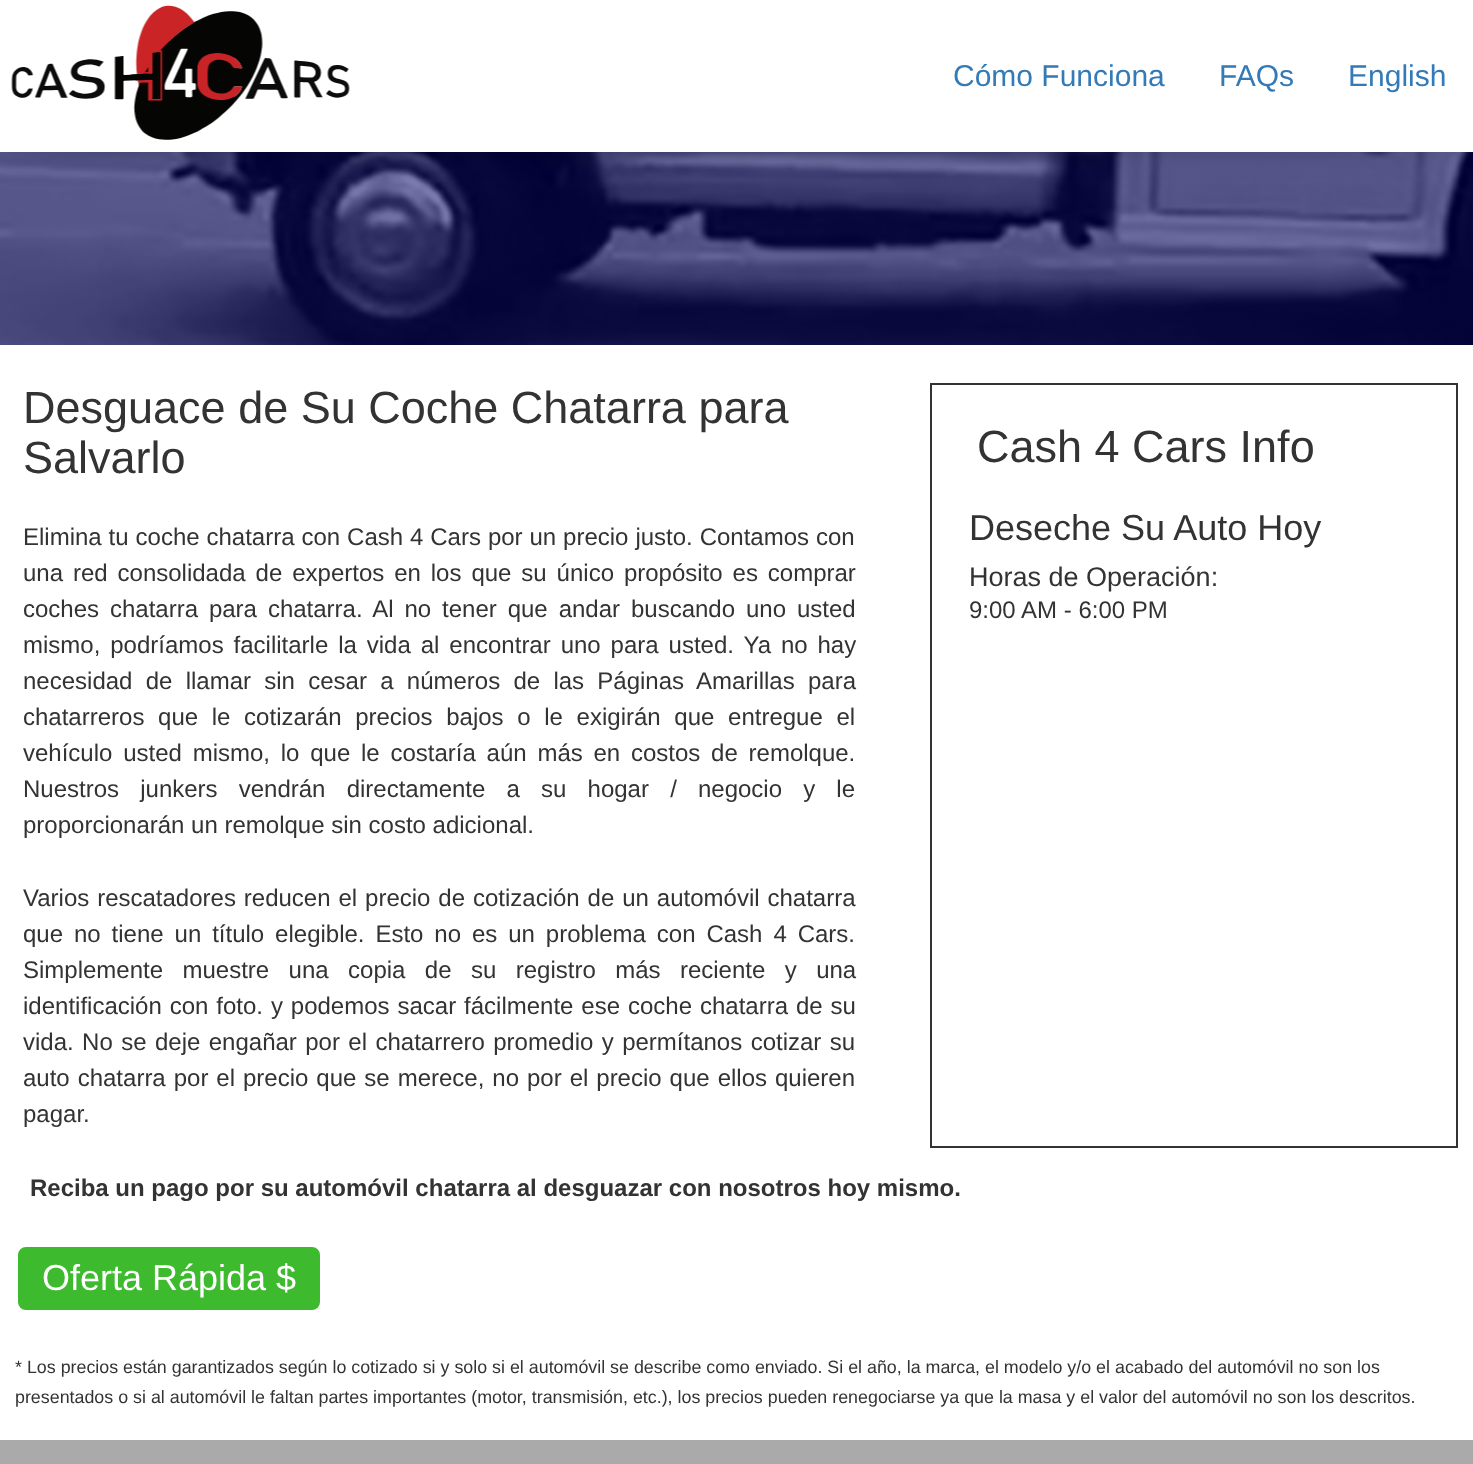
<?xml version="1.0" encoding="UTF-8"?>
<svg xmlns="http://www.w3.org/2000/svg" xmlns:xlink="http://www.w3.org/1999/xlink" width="1473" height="1464">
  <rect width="100%" height="100%" fill="#ffffff" />
  <image x="0" y="152" width="1473" height="193" xlink:href="image2.png" />
  <rect x="30" y="35" width="1413" height="91" fill="#000000" fill-opacity="0.75" filter="blur(22.5px)" />
  <rect width="1473" height="152" fill="#ffffff" />
  <image x="11" y="5" width="339" height="135" xlink:href="image1.png" />
  <rect x="931" y="384" width="526" height="763" fill="none" stroke="#333333" stroke-width="2" />
  <rect x="16.5" y="1245.5" width="305" height="66" rx="9.5" fill="#3eba2e" stroke="#ffffff" stroke-width="3" />
  <rect y="1440" width="1473" height="24" fill="#aaaaaa" />
  <text x="953" y="86" style="font-family: Liberation Sans; font-size: 30px; fill: #337ab7">Cómo Funciona</text>
  <text x="1219" y="86" style="font-family: Liberation Sans; font-size: 30px; fill: #337ab7">FAQs</text>
  <text x="1348" y="86" style="font-family: Liberation Sans; font-size: 30px; fill: #337ab7">English</text>
  <text x="23" y="423" style="font-family: Liberation Sans; font-size: 45px; fill: #333333">Desguace de Su Coche Chatarra para</text>
  <text x="23" y="473" style="font-family: Liberation Sans; font-size: 45px; fill: #333333">Salvarlo</text>
  <text x="977" y="462" style="font-family: Liberation Sans; font-size: 45px; fill: #333333">Cash 4 Cars Info</text>
  <text x="969" y="540" style="font-family: Liberation Sans; font-size: 36px; fill: #333333">Deseche Su Auto Hoy</text>
  <text x="969" y="586" style="font-family: Liberation Sans; font-size: 27px; fill: #333333">Horas de Operación:</text>
  <text x="969" y="618" style="font-family: Liberation Sans; font-size: 24px; fill: #333333">9:00 AM - 6:00 PM</text>
  <text x="23" y="545" word-spacing="0.25" style="font-family: Liberation Sans; font-size: 24px; fill: #333333">Elimina tu coche chatarra con Cash 4 Cars por un precio justo. Contamos con</text>
  <text x="23" y="581" word-spacing="3.25" style="font-family: Liberation Sans; font-size: 24px; fill: #333333">una red consolidada de expertos en los que su único propósito es comprar</text>
  <text x="23" y="617" word-spacing="4.25" style="font-family: Liberation Sans; font-size: 24px; fill: #333333">coches chatarra para chatarra. Al no tener que andar buscando uno usted</text>
  <text x="23" y="653" word-spacing="3.25" style="font-family: Liberation Sans; font-size: 24px; fill: #333333">mismo, podríamos facilitarle la vida al encontrar uno para usted. Ya no hay</text>
  <text x="23" y="689" word-spacing="6.6" style="font-family: Liberation Sans; font-size: 24px; fill: #333333">necesidad de llamar sin cesar a números de las Páginas Amarillas para</text>
  <text x="23" y="725" word-spacing="7" style="font-family: Liberation Sans; font-size: 24px; fill: #333333">chatarreros que le cotizarán precios bajos o le exigirán que entregue el</text>
  <text x="23" y="761" word-spacing="4.1" style="font-family: Liberation Sans; font-size: 24px; fill: #333333">vehículo usted mismo, lo que le costaría aún más en costos de remolque.</text>
  <text x="23" y="797" word-spacing="14.5" style="font-family: Liberation Sans; font-size: 24px; fill: #333333">Nuestros junkers vendrán directamente a su hogar / negocio y le</text>
  <text x="23" y="833" style="font-family: Liberation Sans; font-size: 24px; fill: #333333">proporcionarán un remolque sin costo adicional.</text>
  <text x="23" y="906" word-spacing="1.25" style="font-family: Liberation Sans; font-size: 24px; fill: #333333">Varios rescatadores reducen el precio de cotización de un automóvil chatarra</text>
  <text x="23" y="942" word-spacing="4.25" style="font-family: Liberation Sans; font-size: 24px; fill: #333333">que no tiene un título elegible. Esto no es un problema con Cash 4 Cars.</text>
  <text x="23" y="978" word-spacing="12.75" style="font-family: Liberation Sans; font-size: 24px; fill: #333333">Simplemente muestre una copia de su registro más reciente y una</text>
  <text x="23" y="1014" word-spacing="1.25" style="font-family: Liberation Sans; font-size: 24px; fill: #333333">identificación con foto. y podemos sacar fácilmente ese coche chatarra de su</text>
  <text x="23" y="1050" word-spacing="1.75" style="font-family: Liberation Sans; font-size: 24px; fill: #333333">vida. No se deje engañar por el chatarrero promedio y permítanos cotizar su</text>
  <text x="23" y="1086" word-spacing="1.3" style="font-family: Liberation Sans; font-size: 24px; fill: #333333">auto chatarra por el precio que se merece, no por el precio que ellos quieren</text>
  <text x="23" y="1122" style="font-family: Liberation Sans; font-size: 24px; fill: #333333">pagar.</text>
  <text x="30" y="1196" style="font-family: Liberation Sans; font-size: 24px; font-weight: bold; fill: #333333">Reciba un pago por su automóvil chatarra al desguazar con nosotros hoy mismo.</text>
  <text x="42" y="1290" style="font-family: Liberation Sans; font-size: 36px; fill: #ffffff">Oferta Rápida $</text>
  <text x="15" y="1373" style="font-family: Liberation Sans; font-size: 17.85px; fill: #333333">* Los precios están garantizados según lo cotizado si y solo si el automóvil se describe como enviado. Si el año, la marca, el modelo y/o el acabado del automóvil no son los</text>
  <text x="15" y="1403" style="font-family: Liberation Sans; font-size: 17.85px; fill: #333333">presentados o si al automóvil le faltan partes importantes (motor, transmisión, etc.), los precios pueden renegociarse ya que la masa y el valor del automóvil no son los descritos.</text>
</svg>
